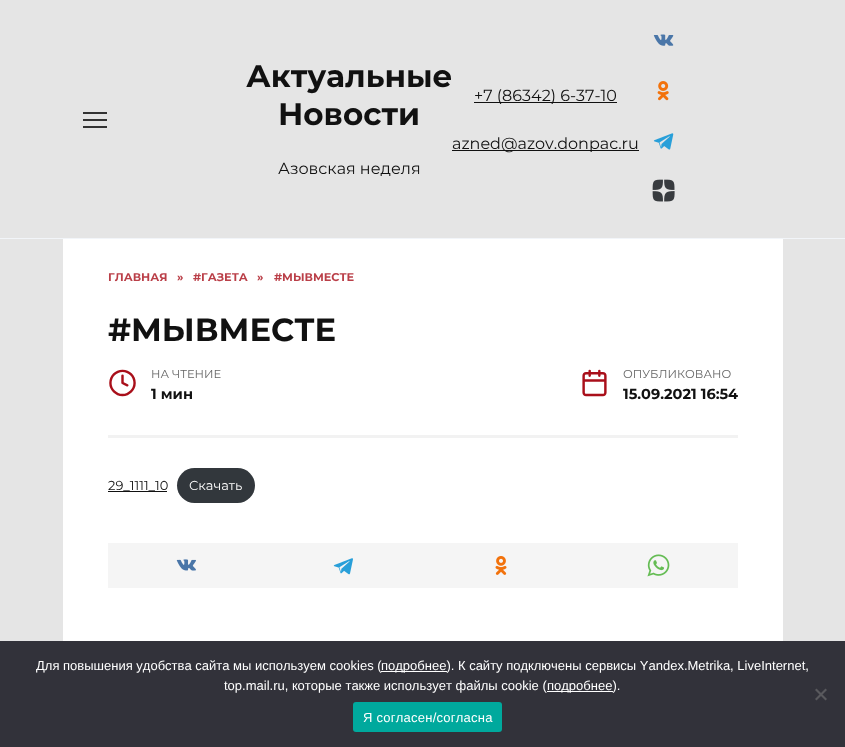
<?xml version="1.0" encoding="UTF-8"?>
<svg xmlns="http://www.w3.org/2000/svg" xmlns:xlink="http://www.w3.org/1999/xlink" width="845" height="747">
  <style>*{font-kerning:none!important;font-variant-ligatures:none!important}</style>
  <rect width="100%" height="100%" fill="#e5e5e5" />
  <rect y="238" width="845" height="1" fill="#f2f5f9" />
  <rect x="83" y="112" width="24" height="2" fill="#333333" />
  <rect x="83" y="119" width="24" height="2" fill="#333333" />
  <rect x="83" y="126" width="24" height="2" fill="#333333" />
  <rect x="474" y="102" width="143" height="1" fill="#111111" />
  <rect x="452" y="150" width="187" height="1" fill="#111111" />
  <image x="653" y="34" width="21" height="12" xlink:href="image1.png" />
  <image x="657" y="81" width="12" height="20" xlink:href="image2.png" />
  <image x="653" y="133" width="21" height="17" xlink:href="image3.png" />
  <image x="652" y="179" width="23" height="23" xlink:href="image4.png" />
  <rect x="63" y="239" width="720" height="402" fill="#ffffff" />
  <rect x="108" y="435" width="630" height="3" fill="#f2f2f2" />
  <rect x="108" y="491" width="59" height="1" fill="#111111" />
  <rect x="177" y="468" width="78" height="35" rx="17.5" fill="#32373c" />
  <rect x="108" y="543" width="630" height="45" fill="#f5f5f5" />
  <image x="176" y="559" width="20" height="12" xlink:href="image5.png" />
  <image x="333" y="558" width="20" height="17" xlink:href="image6.png" />
  <image x="495" y="556" width="12" height="19" xlink:href="image7.png" />
  <image x="647" y="554" width="23" height="23" xlink:href="image8.png" />
  <rect y="641" width="845" height="106" fill="#32323a" />
  <rect x="381" y="671" width="66" height="1" fill="#ffffff" />
  <rect x="547" y="691" width="66" height="1" fill="#ffffff" />
  <path d="M 825.5 688.5 l 1.5 1.5 l -10.5 10.5 l -1.5 -1.5 z" fill="#59595d" />
  <path d="M 815 690 l 1.5 -1.5 l 10.5 10.5 l -1.5 1.5 z" fill="#59595d" />
  <rect x="353" y="702" width="149" height="30" rx="3" fill="#00a99d" />
  <text x="246" y="87" style="font-family: Montserrat; font-size: 31px; font-weight: bold; fill: #111111">Актуальные</text>
  <text x="278" y="125" style="font-family: Montserrat; font-size: 31px; font-weight: bold; fill: #111111">Новости</text>
  <text x="278" y="174" style="font-family: Montserrat; font-size: 16px; fill: #111111">Азовская неделя</text>
  <text x="474" y="101" style="font-family: Montserrat; font-size: 16px; fill: #111111">+7 (86342) 6-37-10</text>
  <text x="452" y="149" style="font-family: Montserrat; font-size: 16px; fill: #111111">azned@azov.donpac.ru</text>
  <text x="108" y="281" style="font-family: Montserrat; font-size: 11.25px; font-weight: bold; fill: #ba3f48">ГЛАВНАЯ</text>
  <text x="177" y="281" style="font-family: Montserrat; font-size: 11.25px; font-weight: bold; fill: #ba3f48">»</text>
  <text x="193" y="281" style="font-family: Montserrat; font-size: 11.25px; font-weight: bold; fill: #ba3f48">#ГАЗЕТА</text>
  <text x="257" y="281" style="font-family: Montserrat; font-size: 11.25px; font-weight: bold; fill: #ba3f48">»</text>
  <text x="274" y="281" style="font-family: Montserrat; font-size: 11.25px; font-weight: bold; fill: #ba3f48">#МЫВМЕСТЕ</text>
  <text x="108" y="341" style="font-family: Montserrat; font-size: 32px; font-weight: bold; fill: #111111">#МЫВМЕСТЕ</text>
  <text x="108" y="395" style="font-family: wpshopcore; font-size: 29px; fill: #a90f1a">🕒</text>
  <text x="151" y="378" style="font-family: Montserrat; font-size: 11.5px; fill: #666666">НА ЧТЕНИЕ</text>
  <text x="151" y="399" style="font-family: Montserrat; font-size: 14.5px; font-weight: bold; fill: #111111">1 мин</text>
  <text x="580" y="395" style="font-family: wpshopcore; font-size: 29px; fill: #a90f1a">📅</text>
  <text x="623" y="378" style="font-family: Montserrat; font-size: 11.5px; fill: #666666">ОПУБЛИКОВАНО</text>
  <text x="623" y="399" style="font-family: Montserrat; font-size: 14.5px; font-weight: bold; fill: #111111">15.09.2021 16:54</text>
  <text x="108" y="490" style="font-family: Montserrat; font-size: 13px; fill: #111111">29_1111_10</text>
  <text x="189" y="490" style="font-family: Montserrat; font-size: 13px; fill: #ffffff">Скачать</text>
  <text x="36" y="670" style="font-family: Liberation Sans; font-size: 13px; fill: #ffffff">Для повышения удобства сайта мы используем cookies (</text>
  <text x="381" y="670" style="font-family: Liberation Sans; font-size: 13px; fill: #ffffff">подробнее). К сайту подключены сервисы Yandex.Metrika, LiveInternet,</text>
  <text x="224" y="690" style="font-family: Liberation Sans; font-size: 13px; fill: #ffffff">top.mail.ru, которые также использует файлы cookie (</text>
  <text x="547" y="690" style="font-family: Liberation Sans; font-size: 13px; fill: #ffffff">подробнее).</text>
  <text x="363" y="722" style="font-family: Liberation Sans; font-size: 13px; letter-spacing: 0.25px; fill: #ffffff">Я согласен/согласна</text>
</svg>
